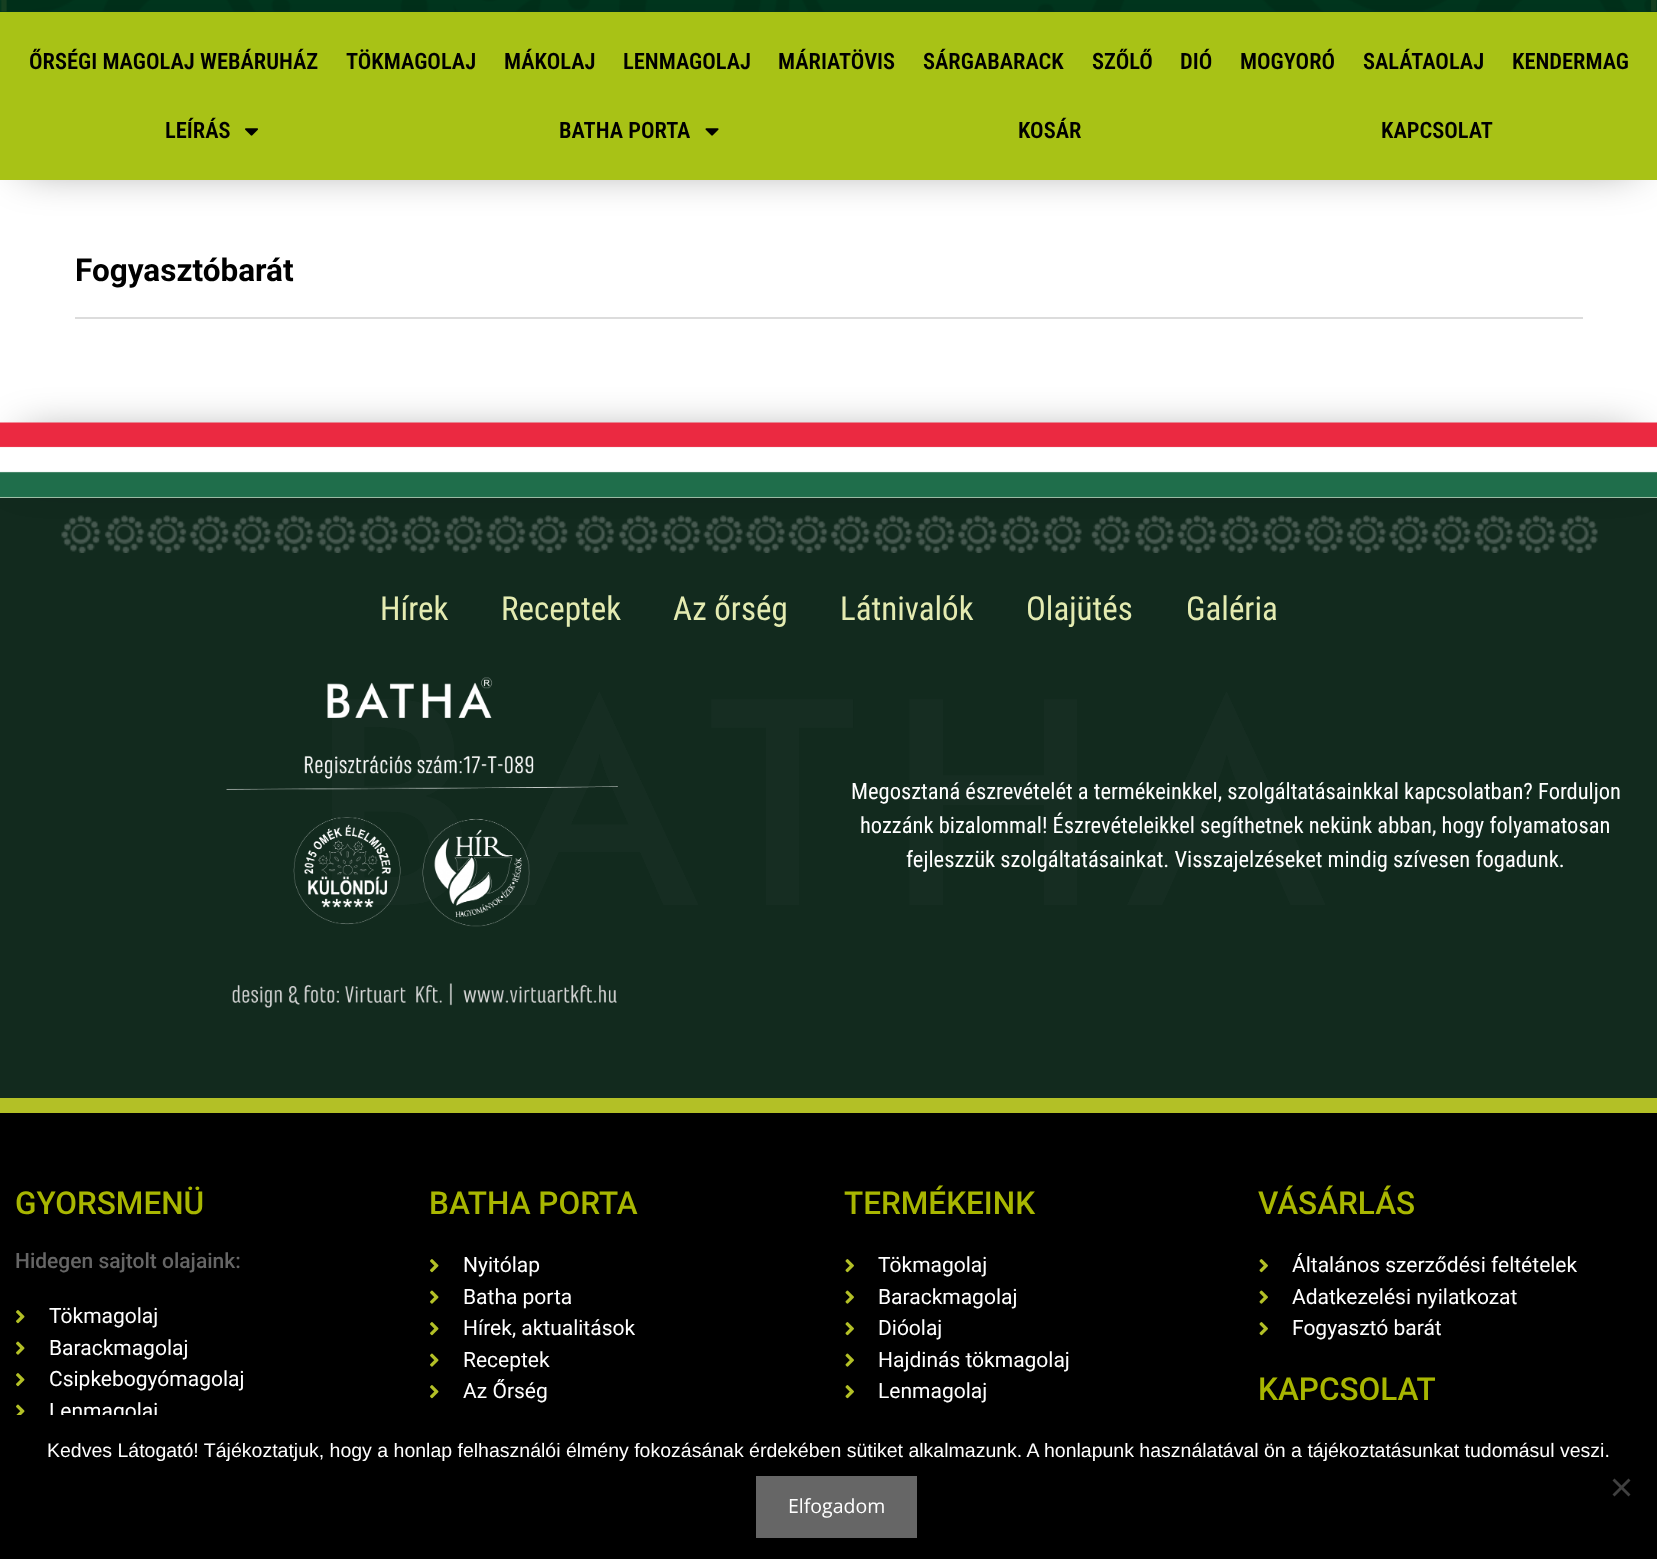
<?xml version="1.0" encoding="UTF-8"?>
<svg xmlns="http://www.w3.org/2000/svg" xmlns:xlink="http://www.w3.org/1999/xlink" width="1657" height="1559">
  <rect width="100%" height="100%" fill="#f2f6e4" />
  <rect width="1657" height="12" fill="#00361e" />
  <image x="0" y="0" width="1657" height="12" xlink:href="image1.png" />
  <rect y="180" width="1657" height="243" fill="#ffffff" />
  <rect x="23" y="42" width="1612" height="123" fill="#000000" fill-opacity="0.5" filter="blur(22.5px)" />
  <rect y="12" width="1657" height="168" fill="#a8c216" />
  <image x="245" y="128" width="13" height="8" xlink:href="image2.png" />
  <image x="705" y="128" width="14" height="8" xlink:href="image3.png" />
  <rect x="75" y="317" width="1508" height="2" fill="#dcdcdc" />
  <rect y="498" width="1657" height="600" fill="#122a1e" />
  <image x="61" y="515" width="1537" height="38" xlink:href="image5.png" />
  <rect x="23" y="438" width="1612" height="30" fill="#000000" fill-opacity="0.5" filter="blur(22.5px)" />
  <image x="0" y="422" width="1657" height="76" xlink:href="image4.png" />
  <rect y="1098" width="1657" height="15" fill="#b3c026" />
  <image x="332" y="692" width="993" height="213" xlink:href="image7.png" />
  <image x="226" y="677" width="392" height="331" xlink:href="image6.png" />
  <rect y="1113" width="1657" height="302" fill="#000000" />
  <image x="16" y="1310" width="9" height="14" xlink:href="image8.png" />
  <image x="16" y="1341" width="9" height="14" xlink:href="image9.png" />
  <image x="16" y="1373" width="9" height="14" xlink:href="image8.png" />
  <image x="16" y="1404" width="9" height="11" xlink:href="image10.png" />
  <image x="430" y="1259" width="9" height="14" xlink:href="image8.png" />
  <image x="430" y="1290" width="9" height="14" xlink:href="image9.png" />
  <image x="430" y="1322" width="9" height="14" xlink:href="image8.png" />
  <image x="430" y="1353" width="9" height="14" xlink:href="image9.png" />
  <image x="430" y="1385" width="9" height="14" xlink:href="image8.png" />
  <image x="845" y="1259" width="9" height="14" xlink:href="image11.png" />
  <image x="845" y="1290" width="9" height="14" xlink:href="image12.png" />
  <image x="845" y="1322" width="9" height="14" xlink:href="image11.png" />
  <image x="845" y="1353" width="9" height="14" xlink:href="image12.png" />
  <image x="845" y="1385" width="9" height="14" xlink:href="image11.png" />
  <image x="1259" y="1259" width="9" height="14" xlink:href="image11.png" />
  <image x="1259" y="1290" width="9" height="14" xlink:href="image12.png" />
  <image x="1259" y="1322" width="9" height="14" xlink:href="image11.png" />
  <text x="29" y="69" style="font-family: Roboto Condensed; font-size: 22.5px; font-weight: 600; fill: #000000">ŐRSÉGI MAGOLAJ WEBÁRUHÁZ</text>
  <text x="346" y="69" style="font-family: Roboto Condensed; font-size: 22.5px; font-weight: 600; fill: #000000">TÖKMAGOLAJ</text>
  <text x="504" y="69" style="font-family: Roboto Condensed; font-size: 22.5px; font-weight: 600; fill: #000000">MÁKOLAJ</text>
  <text x="623" y="69" style="font-family: Roboto Condensed; font-size: 22.5px; font-weight: 600; fill: #000000">LENMAGOLAJ</text>
  <text x="778" y="69" style="font-family: Roboto Condensed; font-size: 22.5px; font-weight: 600; fill: #000000">MÁRIATÖVIS</text>
  <text x="923" y="69" style="font-family: Roboto Condensed; font-size: 22.5px; font-weight: 600; fill: #000000">SÁRGABARACK</text>
  <text x="1092" y="69" style="font-family: Roboto Condensed; font-size: 22.5px; font-weight: 600; fill: #000000">SZŐLŐ</text>
  <text x="1180" y="69" style="font-family: Roboto Condensed; font-size: 22.5px; font-weight: 600; fill: #000000">DIÓ</text>
  <text x="1240" y="69" style="font-family: Roboto Condensed; font-size: 22.5px; font-weight: 600; fill: #000000">MOGYORÓ</text>
  <text x="1363" y="69" style="font-family: Roboto Condensed; font-size: 22.5px; font-weight: 600; fill: #000000">SALÁTAOLAJ</text>
  <text x="1512" y="69" style="font-family: Roboto Condensed; font-size: 22.5px; font-weight: 600; fill: #000000">KENDERMAG</text>
  <text x="165" y="138" style="font-family: Roboto Condensed; font-size: 22.5px; font-weight: 600; fill: #000000">LEÍRÁS</text>
  <text x="559" y="138" style="font-family: Roboto Condensed; font-size: 22.5px; font-weight: 600; fill: #000000">BATHA PORTA</text>
  <text x="1018" y="138" style="font-family: Roboto Condensed; font-size: 22.5px; font-weight: 600; fill: #000000">KOSÁR</text>
  <text x="1381" y="138" style="font-family: Roboto Condensed; font-size: 22.5px; font-weight: 600; fill: #000000">KAPCSOLAT</text>
  <text x="75" y="281" style="font-family: Roboto; font-size: 31.5px; font-weight: bold; fill: #000000">Fogyasztóbarát</text>
  <text x="380" y="620" style="font-family: Roboto Condensed; font-size: 33px; fill: #e4ebb1">Hírek</text>
  <text x="501" y="620" style="font-family: Roboto Condensed; font-size: 33px; fill: #e4ebb1">Receptek</text>
  <text x="673" y="620" style="font-family: Roboto Condensed; font-size: 33px; fill: #e4ebb1">Az őrség</text>
  <text x="840" y="620" style="font-family: Roboto Condensed; font-size: 33px; fill: #e4ebb1">Látnivalók</text>
  <text x="1026" y="620" style="font-family: Roboto Condensed; font-size: 33px; fill: #e4ebb1">Olajütés</text>
  <text x="1186" y="620" style="font-family: Roboto Condensed; font-size: 33px; fill: #e4ebb1">Galéria</text>
  <text x="851" y="799" style="font-family: Roboto Condensed; font-size: 22.5px; fill: #ffffff">Megosztaná észrevételét a termékeinkkel, szolgáltatásainkkal kapcsolatban? Forduljon</text>
  <text x="860" y="833" style="font-family: Roboto Condensed; font-size: 22.5px; fill: #ffffff">hozzánk bizalommal! Észrevételeikkel segíthetnek nekünk abban, hogy folyamatosan</text>
  <text x="906" y="867" style="font-family: Roboto Condensed; font-size: 22.5px; fill: #ffffff">fejleszzük szolgáltatásainkat. Visszajelzéseket mindig szívesen fogadunk.</text>
  <text x="15" y="1214" style="font-family: Roboto; font-size: 31.5px; font-weight: 500; fill: #a8b601">GYORSMENÜ</text>
  <text x="15" y="1268" style="font-family: Roboto; font-size: 21px; font-weight: 500; fill: #666666">Hidegen sajtolt olajaink:</text>
  <text x="49" y="1323" style="font-family: Roboto; font-size: 21px; fill: #ffffff">Tökmagolaj</text>
  <text x="49" y="1355" style="font-family: Roboto; font-size: 21px; fill: #ffffff">Barackmagolaj</text>
  <text x="49" y="1386" style="font-family: Roboto; font-size: 21px; fill: #ffffff">Csipkebogyómagolaj</text>
  <text x="49" y="1418" style="font-family: Roboto; font-size: 21px; fill: #ffffff">Lenmagolaj</text>
  <text x="429" y="1214" style="font-family: Roboto; font-size: 31.5px; font-weight: 500; fill: #a8b601">BATHA PORTA</text>
  <text x="463" y="1272" style="font-family: Roboto; font-size: 21px; fill: #ffffff">Nyitólap</text>
  <text x="463" y="1304" style="font-family: Roboto; font-size: 21px; fill: #ffffff">Batha porta</text>
  <text x="463" y="1335" style="font-family: Roboto; font-size: 21px; fill: #ffffff">Hírek, aktualitások</text>
  <text x="463" y="1367" style="font-family: Roboto; font-size: 21px; fill: #ffffff">Receptek</text>
  <text x="463" y="1398" style="font-family: Roboto; font-size: 21px; fill: #ffffff">Az Őrség</text>
  <text x="844" y="1214" style="font-family: Roboto; font-size: 31.5px; font-weight: 500; fill: #a8b601">TERMÉKEINK</text>
  <text x="878" y="1272" style="font-family: Roboto; font-size: 21px; fill: #ffffff">Tökmagolaj</text>
  <text x="878" y="1304" style="font-family: Roboto; font-size: 21px; fill: #ffffff">Barackmagolaj</text>
  <text x="878" y="1335" style="font-family: Roboto; font-size: 21px; fill: #ffffff">Dióolaj</text>
  <text x="878" y="1367" style="font-family: Roboto; font-size: 21px; fill: #ffffff">Hajdinás tökmagolaj</text>
  <text x="878" y="1398" style="font-family: Roboto; font-size: 21px; fill: #ffffff">Lenmagolaj</text>
  <text x="1258" y="1214" style="font-family: Roboto; font-size: 31.5px; font-weight: 500; fill: #a8b601">VÁSÁRLÁS</text>
  <text x="1292" y="1272" style="font-family: Roboto; font-size: 21px; fill: #ffffff">Általános szerződési feltételek</text>
  <text x="1292" y="1304" style="font-family: Roboto; font-size: 21px; fill: #ffffff">Adatkezelési nyilatkozat</text>
  <text x="1292" y="1335" style="font-family: Roboto; font-size: 21px; fill: #ffffff">Fogyasztó barát</text>
  <text x="1258" y="1400" style="font-family: Roboto; font-size: 31.5px; font-weight: 500; fill: #a8b601">KAPCSOLAT</text>
  <rect y="1415" width="1657" height="144" fill="#000000" />
  <text x="47" y="1457" style="font-family: Liberation Sans; font-size: 19.5px; fill: #ffffff">Kedves Látogató! Tájékoztatjuk, hogy a honlap felhasználói élmény fokozásának érdekében sütiket alkalmazunk. A honlapunk használatával ön a tájékoztatásunkat tudomásul veszi.</text>
  <path d="M 1628.5 1478.5 l 2 2 l -16 16 l -2 -2 z" fill="#404040" />
  <path d="M 1612.5 1480.5 l 2 -2 l 16 16 l -2 2 z" fill="#404040" />
  <rect x="756" y="1476" width="161" height="62" fill="#666666" />
  <text x="788" y="1513" style="font-family: Open Sans; font-size: 19.5px; fill: #ffffff">Elfogadom</text>
</svg>
